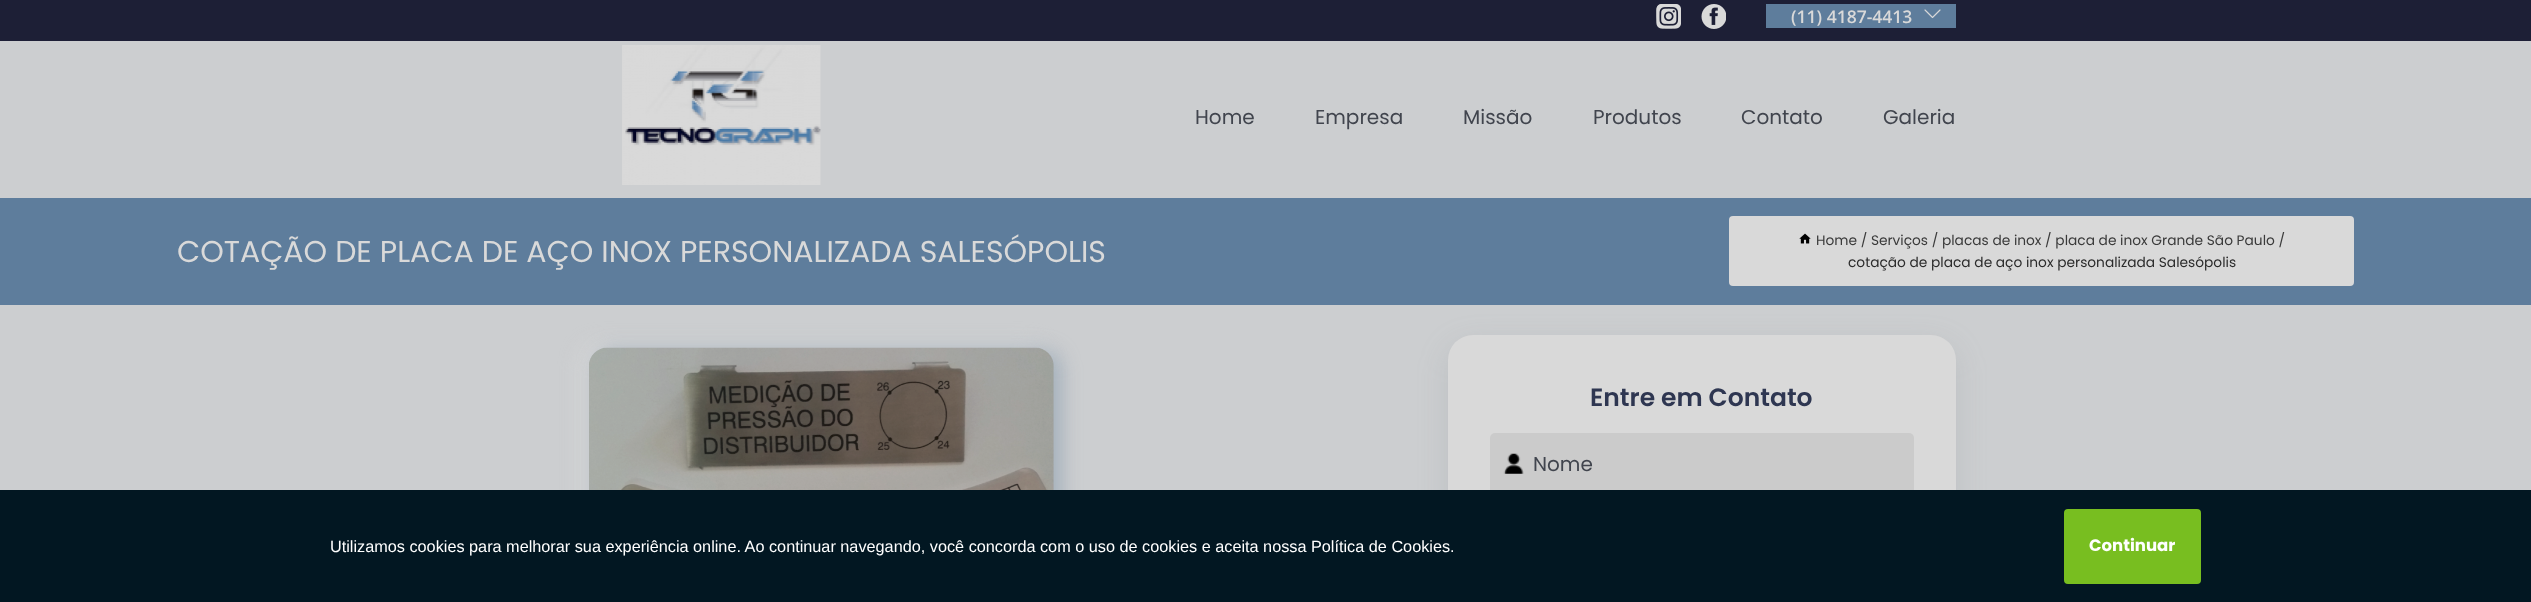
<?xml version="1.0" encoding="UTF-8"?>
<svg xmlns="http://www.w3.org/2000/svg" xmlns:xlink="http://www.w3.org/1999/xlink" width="2531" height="602">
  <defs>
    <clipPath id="clip1"><path d="M 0 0 h 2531 v 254 h -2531 z m 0 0 h 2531 v 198 h -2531 z" clip-rule="evenodd" /></clipPath>
  </defs>
  <rect width="100%" height="100%" fill="#ccced0" />
  <g clip-path="url(#clip1)">
    <rect y="10" width="2531" height="198" fill="#7f858c" fill-opacity="0.2" filter="blur(15px)" />
  </g>
  <rect width="2531" height="41" fill="#1d1f36" />
  <image x="1656" y="4" width="25" height="25" xlink:href="image1.png" />
  <image x="1701" y="4" width="25" height="25" xlink:href="image2.png" />
  <rect x="1766" y="4" width="190" height="24" fill="#5e7d9c" />
  <image x="1924" y="9" width="17" height="10" xlink:href="image3.png" />
  <image x="622" y="45" width="199" height="140" xlink:href="image4.png" />
  <rect y="198" width="2531" height="107" fill="#5e7d9c" />
  <rect x="1729" y="216" width="625" height="70" rx="4" fill="#d9d9d9" />
  <image x="1799" y="233" width="12" height="11" xlink:href="image5.png" />
  <rect x="581" y="345" width="465" height="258" rx="19" fill="#d9d9d9" fill-opacity="0.8" filter="blur(10px)" />
  <rect x="596" y="350" width="465" height="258" rx="19" fill="#748ca2" fill-opacity="0.48" filter="blur(10px)" />
  <image x="589" y="347" width="465" height="143" xlink:href="image6.png" />
  <rect x="1448" y="345" width="508" height="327" rx="25" fill="#7f858c" fill-opacity="0.2" filter="blur(15px)" />
  <rect x="1448" y="335" width="508" height="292" rx="25" fill="#d9d9d9" />
  <rect x="1490" y="433" width="424" height="63" rx="5" fill="#cbcbcb" />
  <image x="1503" y="453" width="21" height="21" xlink:href="image7.png" />
  <rect y="490" width="2531" height="112" fill="#021722" />
  <rect x="2064" y="509" width="137" height="75" rx="4" fill="#78be20" />
  <text x="1791" y="23" style="font-family: Open Sans; font-size: 17.5px; font-weight: 600; fill: #d9d9d9">(11) 4187-4413</text>
  <text x="1195" y="124" style="font-family: Poppins; font-size: 20px; fill: #41454e">Home</text>
  <text x="1315" y="124" style="font-family: Poppins; font-size: 20px; fill: #41454e">Empresa</text>
  <text x="1463" y="124" style="font-family: Poppins; font-size: 20px; fill: #41454e">Missão</text>
  <text x="1593" y="124" style="font-family: Poppins; font-size: 20px; fill: #41454e">Produtos</text>
  <text x="1741" y="124" style="font-family: Poppins; font-size: 20px; fill: #41454e">Contato</text>
  <text x="1883" y="124" style="font-family: Poppins; font-size: 20px; fill: #41454e">Galeria</text>
  <text x="177" y="262" style="font-family: Poppins; font-size: 30px; fill: #d9d9d9">COTAÇÃO DE PLACA DE AÇO INOX PERSONALIZADA SALESÓPOLIS</text>
  <text x="1816" y="245" style="font-family: Poppins; font-size: 13.75px; fill: #3a3a3a">Home / Serviços / placas de inox / placa de inox Grande São Paulo /</text>
  <text x="1848" y="267" style="font-family: Poppins; font-size: 13.75px; fill: #2b2b2b">cotação de placa de aço inox personalizada Salesópolis</text>
  <text x="1590" y="406" style="font-family: Poppins; font-size: 25px; font-weight: 600; fill: #2e3651">Entre em Contato</text>
  <text x="1533" y="471" style="font-family: Poppins; font-size: 20px; fill: #41454e">Nome</text>
  <text x="330" y="552" style="font-family: Liberation Sans; font-size: 16.25px; fill: #ffffff">Utilizamos cookies para melhorar sua experiência online. Ao continuar navegando, você concorda com o uso de cookies e aceita nossa Política de Cookies.</text>
  <text x="2089" y="551" style="font-family: Poppins; font-size: 16.5px; font-weight: bold; fill: #ffffff">Continuar</text>
</svg>
